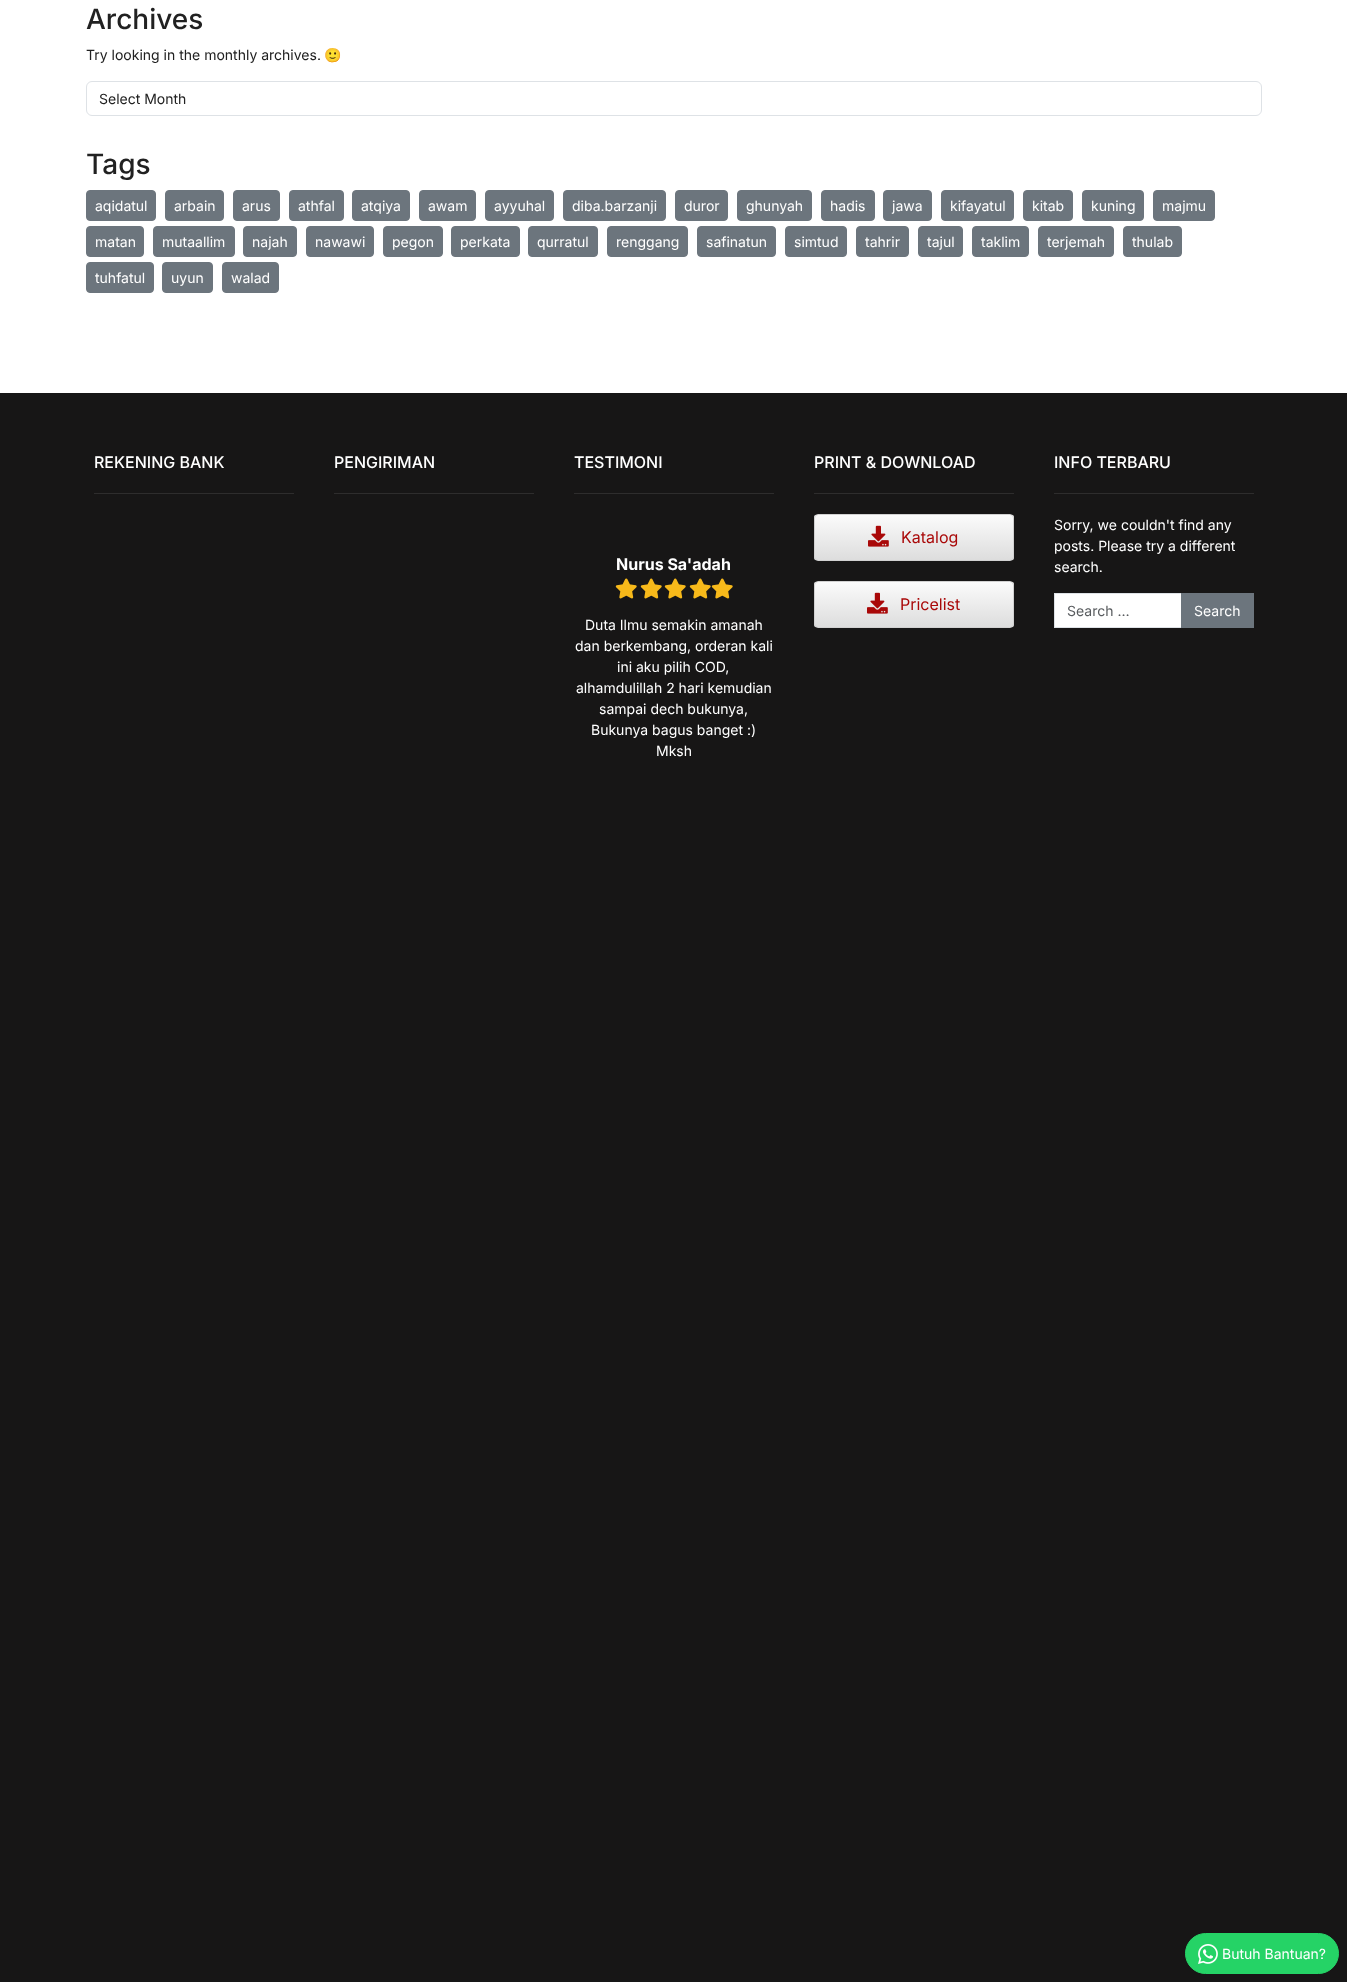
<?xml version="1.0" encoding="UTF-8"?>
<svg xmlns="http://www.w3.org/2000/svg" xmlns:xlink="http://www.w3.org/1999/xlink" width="1347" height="1982">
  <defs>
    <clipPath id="clip1"><rect x="814" y="514" width="200" height="47" rx="4" /></clipPath>
    <linearGradient id="g1" gradientUnits="userSpaceOnUse" x1="914" y1="515" x2="914" y2="560"><stop offset="0" stop-color="#fbfbfb" /><stop offset="1" stop-color="#dddddd" /></linearGradient>
    <clipPath id="clip2"><rect x="814" y="581" width="200" height="47" rx="4" /></clipPath>
    <linearGradient id="g2" gradientUnits="userSpaceOnUse" x1="914" y1="582" x2="914" y2="627"><stop offset="0" stop-color="#fbfbfb" /><stop offset="1" stop-color="#dddddd" /></linearGradient>
  </defs>
  <rect width="100%" height="100%" fill="#ffffff" />
  <rect x="86.5" y="81.5" width="1175" height="34" rx="5.5" fill="none" stroke="#dee2e6" />
  <rect x="86.5" y="190.5" width="69" height="30" rx="3.5" fill="#6c757d" stroke="#6c757d" />
  <rect x="165.5" y="190.5" width="58" height="30" rx="3.5" fill="#6c757d" stroke="#6c757d" />
  <rect x="233.5" y="190.5" width="46" height="30" rx="3.5" fill="#6c757d" stroke="#6c757d" />
  <rect x="289.5" y="190.5" width="54" height="30" rx="3.5" fill="#6c757d" stroke="#6c757d" />
  <rect x="352.5" y="190.5" width="57" height="30" rx="3.5" fill="#6c757d" stroke="#6c757d" />
  <rect x="419.5" y="190.5" width="56" height="30" rx="3.5" fill="#6c757d" stroke="#6c757d" />
  <rect x="485.5" y="190.5" width="68" height="30" rx="3.5" fill="#6c757d" stroke="#6c757d" />
  <rect x="563.5" y="190.5" width="102" height="30" rx="3.5" fill="#6c757d" stroke="#6c757d" />
  <rect x="675.5" y="190.5" width="52" height="30" rx="3.5" fill="#6c757d" stroke="#6c757d" />
  <rect x="737.5" y="190.5" width="74" height="30" rx="3.5" fill="#6c757d" stroke="#6c757d" />
  <rect x="821.5" y="190.5" width="53" height="30" rx="3.5" fill="#6c757d" stroke="#6c757d" />
  <rect x="883.5" y="190.5" width="48" height="30" rx="3.5" fill="#6c757d" stroke="#6c757d" />
  <rect x="941.5" y="190.5" width="72" height="30" rx="3.5" fill="#6c757d" stroke="#6c757d" />
  <rect x="1023.5" y="190.5" width="49" height="30" rx="3.5" fill="#6c757d" stroke="#6c757d" />
  <rect x="1082.5" y="190.5" width="61" height="30" rx="3.5" fill="#6c757d" stroke="#6c757d" />
  <rect x="1153.5" y="190.5" width="61" height="30" rx="3.5" fill="#6c757d" stroke="#6c757d" />
  <rect x="86.5" y="226.5" width="57" height="30" rx="3.5" fill="#6c757d" stroke="#6c757d" />
  <rect x="153.5" y="226.5" width="81" height="30" rx="3.5" fill="#6c757d" stroke="#6c757d" />
  <rect x="243.5" y="226.5" width="53" height="30" rx="3.5" fill="#6c757d" stroke="#6c757d" />
  <rect x="306.5" y="226.5" width="67" height="30" rx="3.5" fill="#6c757d" stroke="#6c757d" />
  <rect x="383.5" y="226.5" width="59" height="30" rx="3.5" fill="#6c757d" stroke="#6c757d" />
  <rect x="451.5" y="226.5" width="68" height="30" rx="3.5" fill="#6c757d" stroke="#6c757d" />
  <rect x="528.5" y="226.5" width="69" height="30" rx="3.5" fill="#6c757d" stroke="#6c757d" />
  <rect x="607.5" y="226.5" width="80" height="30" rx="3.5" fill="#6c757d" stroke="#6c757d" />
  <rect x="697.5" y="226.5" width="78" height="30" rx="3.5" fill="#6c757d" stroke="#6c757d" />
  <rect x="785.5" y="226.5" width="61" height="30" rx="3.5" fill="#6c757d" stroke="#6c757d" />
  <rect x="856.5" y="226.5" width="52" height="30" rx="3.5" fill="#6c757d" stroke="#6c757d" />
  <rect x="918.5" y="226.5" width="44" height="30" rx="3.5" fill="#6c757d" stroke="#6c757d" />
  <rect x="972.5" y="226.5" width="56" height="30" rx="3.5" fill="#6c757d" stroke="#6c757d" />
  <rect x="1038.5" y="226.5" width="75" height="30" rx="3.5" fill="#6c757d" stroke="#6c757d" />
  <rect x="1123.5" y="226.5" width="58" height="30" rx="3.5" fill="#6c757d" stroke="#6c757d" />
  <rect x="86.5" y="262.5" width="67" height="30" rx="3.5" fill="#6c757d" stroke="#6c757d" />
  <rect x="162.5" y="262.5" width="50" height="30" rx="3.5" fill="#6c757d" stroke="#6c757d" />
  <rect x="222.5" y="262.5" width="56" height="30" rx="3.5" fill="#6c757d" stroke="#6c757d" />
  <rect y="393" width="1347" height="1589" fill="#171616" />
  <rect x="94" y="493" width="200" height="1" fill="#2e2d2d" />
  <rect x="334" y="493" width="200" height="1" fill="#2e2d2d" />
  <rect x="574" y="493" width="200" height="1" fill="#2e2d2d" />
  <image x="615" y="578" width="22" height="21" xlink:href="image1.png" />
  <image x="640" y="578" width="22" height="21" xlink:href="image1.png" />
  <image x="664" y="578" width="22" height="21" xlink:href="image1.png" />
  <image x="689" y="578" width="22" height="21" xlink:href="image1.png" />
  <image x="711" y="578" width="22" height="21" xlink:href="image1.png" />
  <rect x="814" y="493" width="200" height="1" fill="#2e2d2d" />
  <g clip-path="url(#clip1)">
    <rect x="814" y="515" width="200" height="45" fill="url(#g1)" />
  </g>
  <rect x="814.5" y="514.5" width="199" height="46" rx="3.5" fill="none" stroke="#d1d1d1" />
  <image x="868" y="525" width="21" height="22" xlink:href="image2.png" />
  <g clip-path="url(#clip2)">
    <rect x="814" y="582" width="200" height="45" fill="url(#g2)" />
  </g>
  <rect x="814.5" y="581.5" width="199" height="46" rx="3.5" fill="none" stroke="#d1d1d1" />
  <image x="867" y="592" width="21" height="22" xlink:href="image2.png" />
  <rect x="1054" y="493" width="200" height="1" fill="#2e2d2d" />
  <rect x="1054.5" y="593.5" width="127" height="34" fill="#ffffff" stroke="#dee2e6" />
  <rect x="1181" y="593" width="73" height="35" fill="#6c757d" />
  <rect x="1185.5" y="1933.5" width="153" height="40" rx="20" fill="#25d366" stroke="#25d366" />
  <image x="1198" y="1944" width="20" height="20" xlink:href="image3.png" />
  <text x="86" y="29" style="font-family: Inter; font-size: 28px; font-weight: 500; fill: #212121">Archives</text>
  <text x="86" y="60" style="font-family: Inter; font-size: 14px; fill: #212121">Try looking in the monthly archives.</text>
  <text x="324" y="60" style="font-family: Noto Color Emoji; font-size: 14px; fill: #212121">🙂</text>
  <text x="99" y="104" style="font-family: Inter; font-size: 14px; fill: #212121">Select Month</text>
  <text x="86" y="174" style="font-family: Inter; font-size: 28px; font-weight: 500; fill: #212121">Tags</text>
  <text x="95" y="211" style="font-family: Inter; font-size: 14px; fill: #ffffff">aqidatul</text>
  <text x="174" y="211" style="font-family: Inter; font-size: 14px; fill: #ffffff">arbain</text>
  <text x="242" y="211" style="font-family: Inter; font-size: 14px; fill: #ffffff">arus</text>
  <text x="298" y="211" style="font-family: Inter; font-size: 14px; fill: #ffffff">athfal</text>
  <text x="361" y="211" style="font-family: Inter; font-size: 14px; fill: #ffffff">atqiya</text>
  <text x="428" y="211" style="font-family: Inter; font-size: 14px; fill: #ffffff">awam</text>
  <text x="494" y="211" style="font-family: Inter; font-size: 14px; fill: #ffffff">ayyuhal</text>
  <text x="572" y="211" style="font-family: Inter; font-size: 14px; fill: #ffffff">diba.barzanji</text>
  <text x="684" y="211" style="font-family: Inter; font-size: 14px; fill: #ffffff">duror</text>
  <text x="746" y="211" style="font-family: Inter; font-size: 14px; fill: #ffffff">ghunyah</text>
  <text x="830" y="211" style="font-family: Inter; font-size: 14px; fill: #ffffff">hadis</text>
  <text x="892" y="211" style="font-family: Inter; font-size: 14px; fill: #ffffff">jawa</text>
  <text x="950" y="211" style="font-family: Inter; font-size: 14px; fill: #ffffff">kifayatul</text>
  <text x="1032" y="211" style="font-family: Inter; font-size: 14px; fill: #ffffff">kitab</text>
  <text x="1091" y="211" style="font-family: Inter; font-size: 14px; fill: #ffffff">kuning</text>
  <text x="1162" y="211" style="font-family: Inter; font-size: 14px; fill: #ffffff">majmu</text>
  <text x="95" y="247" style="font-family: Inter; font-size: 14px; fill: #ffffff">matan</text>
  <text x="162" y="247" style="font-family: Inter; font-size: 14px; fill: #ffffff">mutaallim</text>
  <text x="252" y="247" style="font-family: Inter; font-size: 14px; fill: #ffffff">najah</text>
  <text x="315" y="247" style="font-family: Inter; font-size: 14px; fill: #ffffff">nawawi</text>
  <text x="392" y="247" style="font-family: Inter; font-size: 14px; fill: #ffffff">pegon</text>
  <text x="460" y="247" style="font-family: Inter; font-size: 14px; fill: #ffffff">perkata</text>
  <text x="537" y="247" style="font-family: Inter; font-size: 14px; fill: #ffffff">qurratul</text>
  <text x="616" y="247" style="font-family: Inter; font-size: 14px; fill: #ffffff">renggang</text>
  <text x="706" y="247" style="font-family: Inter; font-size: 14px; fill: #ffffff">safinatun</text>
  <text x="794" y="247" style="font-family: Inter; font-size: 14px; fill: #ffffff">simtud</text>
  <text x="865" y="247" style="font-family: Inter; font-size: 14px; fill: #ffffff">tahrir</text>
  <text x="927" y="247" style="font-family: Inter; font-size: 14px; fill: #ffffff">tajul</text>
  <text x="981" y="247" style="font-family: Inter; font-size: 14px; fill: #ffffff">taklim</text>
  <text x="1047" y="247" style="font-family: Inter; font-size: 14px; fill: #ffffff">terjemah</text>
  <text x="1132" y="247" style="font-family: Inter; font-size: 14px; fill: #ffffff">thulab</text>
  <text x="95" y="283" style="font-family: Inter; font-size: 14px; fill: #ffffff">tuhfatul</text>
  <text x="171" y="283" style="font-family: Inter; font-size: 14px; fill: #ffffff">uyun</text>
  <text x="231" y="283" style="font-family: Inter; font-size: 14px; fill: #ffffff">walad</text>
  <text x="94" y="468" style="font-family: Inter; font-size: 16px; font-weight: 500; fill: #ffffff">REKENING BANK</text>
  <text x="334" y="468" style="font-family: Inter; font-size: 16px; font-weight: 500; fill: #ffffff">PENGIRIMAN</text>
  <text x="574" y="468" style="font-family: Inter; font-size: 16px; font-weight: 500; fill: #ffffff">TESTIMONI</text>
  <text x="616" y="570" style="font-family: Inter; font-size: 16px; font-weight: bold; fill: #ffffff">Nurus Sa'adah</text>
  <text x="585" y="630" style="font-family: Inter; font-size: 14px; fill: #ffffff">Duta Ilmu semakin amanah</text>
  <text x="575" y="651" style="font-family: Inter; font-size: 14px; fill: #ffffff">dan berkembang, orderan kali</text>
  <text x="617" y="672" style="font-family: Inter; font-size: 14px; fill: #ffffff">ini aku pilih COD,</text>
  <text x="576" y="693" style="font-family: Inter; font-size: 14px; fill: #ffffff">alhamdulillah 2 hari kemudian</text>
  <text x="599" y="714" style="font-family: Inter; font-size: 14px; fill: #ffffff">sampai dech bukunya,</text>
  <text x="591" y="735" style="font-family: Inter; font-size: 14px; fill: #ffffff">Bukunya bagus banget :)</text>
  <text x="656" y="756" style="font-family: Inter; font-size: 14px; fill: #ffffff">Mksh</text>
  <text x="814" y="468" style="font-family: Inter; font-size: 16px; font-weight: 500; fill: #ffffff">PRINT &amp; DOWNLOAD</text>
  <text x="901" y="543" style="font-family: Inter; font-size: 16px; fill: #a90808">Katalog</text>
  <text x="900" y="610" style="font-family: Inter; font-size: 16px; fill: #a90808">Pricelist</text>
  <text x="1054" y="468" style="font-family: Inter; font-size: 16px; font-weight: 500; fill: #ffffff">INFO TERBARU</text>
  <text x="1054" y="530" style="font-family: Inter; font-size: 14px; fill: #ffffff">Sorry, we couldn't find any</text>
  <text x="1054" y="551" style="font-family: Inter; font-size: 14px; fill: #ffffff">posts. Please try a different</text>
  <text x="1054" y="572" style="font-family: Inter; font-size: 14px; fill: #ffffff">search.</text>
  <text x="1067" y="616" style="font-family: Inter; font-size: 14px; fill: #595c5f">Search …</text>
  <text x="1194" y="616" style="font-family: Inter; font-size: 14px; fill: #ffffff">Search</text>
  <text x="1222" y="1959" style="font-family: Inter; font-size: 14px; fill: #ffffff">Butuh Bantuan?</text>
</svg>
